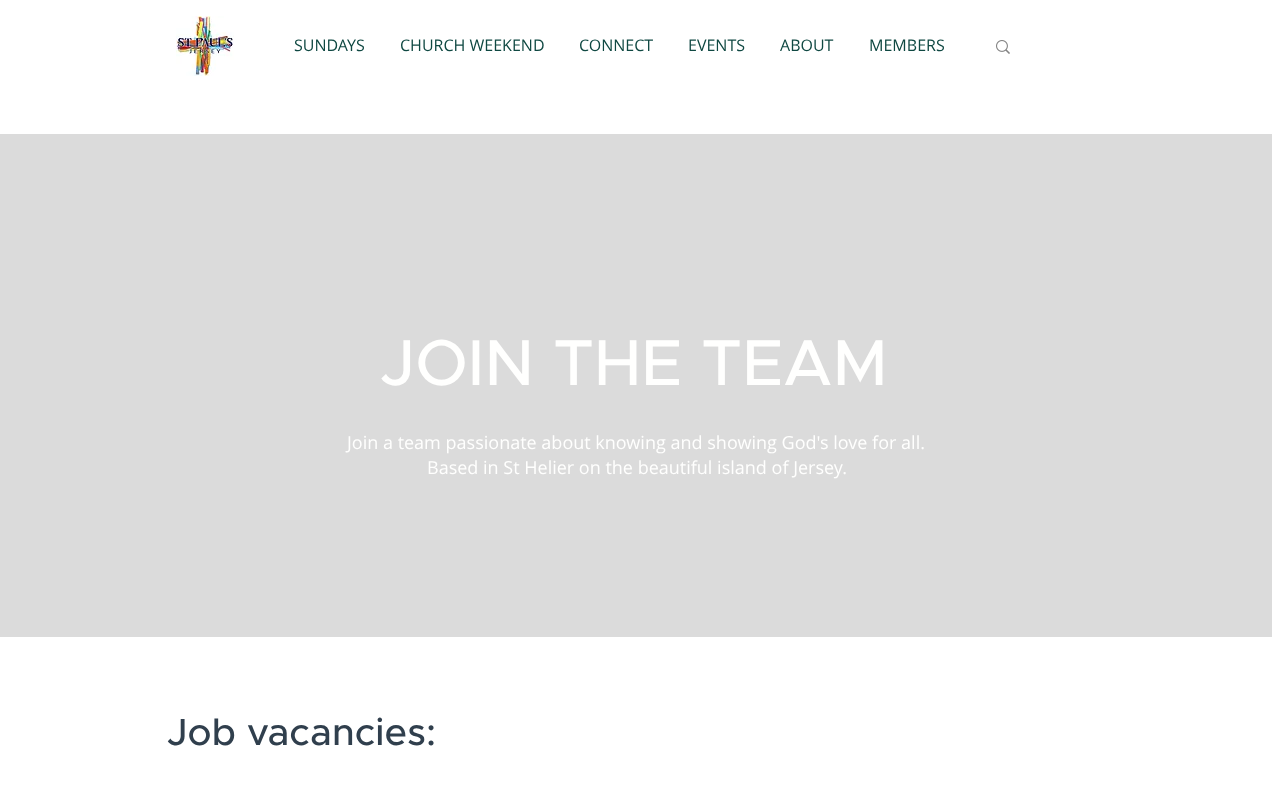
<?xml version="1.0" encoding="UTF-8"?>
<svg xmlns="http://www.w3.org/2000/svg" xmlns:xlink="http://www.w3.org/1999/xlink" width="1272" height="795">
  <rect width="100%" height="100%" fill="#ffffff" />
  <image x="176" y="16" width="58" height="60" xlink:href="image1.png" />
  <image x="996" y="40" width="14" height="14" xlink:href="image2.png" />
  <rect y="134" width="1272" height="503" fill="#dbdbdb" />
  <text x="294" y="51" style="font-family: Open Sans; font-size: 16px; fill: #0f4842">SUNDAYS</text>
  <text x="400" y="51" style="font-family: Open Sans; font-size: 16px; fill: #0f4842">CHURCH WEEKEND</text>
  <text x="579" y="51" style="font-family: Open Sans; font-size: 16px; fill: #0f4842">CONNECT</text>
  <text x="688" y="51" style="font-family: Open Sans; font-size: 16px; fill: #0f4842">EVENTS</text>
  <text x="780" y="51" style="font-family: Open Sans; font-size: 16px; fill: #0f4842">ABOUT</text>
  <text x="869" y="51" style="font-family: Open Sans; font-size: 16px; fill: #0f4842">MEMBERS</text>
  <text x="380" y="385" style="font-family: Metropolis; font-size: 65px; font-weight: 500; fill: #fffffe">JOIN THE TEAM</text>
  <text x="347" y="449" style="font-family: Open Sans; font-size: 18px; fill: #fffffe">Join a team passionate about knowing and showing God's love for all.</text>
  <text x="427" y="474" style="font-family: Open Sans; font-size: 18px; fill: #fffffe">Based in St Helier on the beautiful island of Jersey.</text>
  <text x="167" y="745" style="font-family: Metropolis; font-size: 38px; font-weight: 500; fill: #303f4d">Job vacancies:</text>
</svg>
